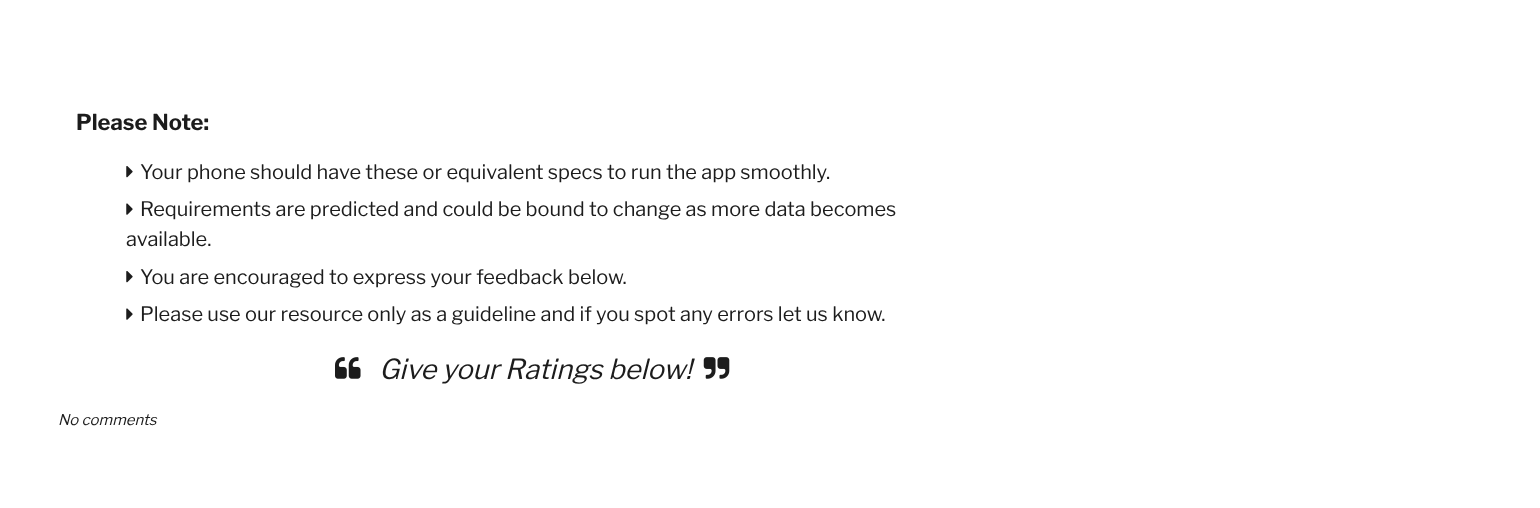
<?xml version="1.0" encoding="UTF-8"?>
<svg xmlns="http://www.w3.org/2000/svg" xmlns:xlink="http://www.w3.org/1999/xlink" width="1540" height="508">
  <rect width="100%" height="100%" fill="#ffffff" />
  <image x="126" y="166" width="7" height="12" xlink:href="image1.png" />
  <image x="126" y="203" width="7" height="12" xlink:href="image2.png" />
  <image x="126" y="271" width="7" height="12" xlink:href="image1.png" />
  <image x="126" y="308" width="7" height="12" xlink:href="image2.png" />
  <image x="335" y="357" width="26" height="22" xlink:href="image3.png" />
  <image x="703" y="357" width="27" height="22" xlink:href="image4.png" />
  <text x="76" y="130" style="font-family: Libre Franklin; font-size: 22px; font-weight: bold; fill: #1c1c1c">Please Note:</text>
  <text x="140" y="179" style="font-family: Libre Franklin; font-size: 20px; fill: #1c1c1c">Your phone should have these or equivalent specs to run the app smoothly.</text>
  <text x="140" y="216" style="font-family: Libre Franklin; font-size: 20px; fill: #1c1c1c">Requirements are predicted and could be bound to change as more data becomes</text>
  <text x="126" y="246" style="font-family: Libre Franklin; font-size: 20px; fill: #1c1c1c">available.</text>
  <text x="140" y="284" style="font-family: Libre Franklin; font-size: 20px; fill: #1c1c1c">You are encouraged to express your feedback below.</text>
  <text x="140" y="321" style="font-family: Libre Franklin; font-size: 20px; fill: #1c1c1c">Please use our resource only as a guideline and if you spot any errors let us know.</text>
  <text x="379" y="379" style="font-family: Libre Franklin; font-size: 27.5px; font-style: italic; fill: #1c1c1c">Give your Ratings below!</text>
  <text x="58" y="425" style="font-family: Libre Franklin; font-size: 15px; font-style: italic; fill: #1c1c1c">No comments</text>
</svg>
